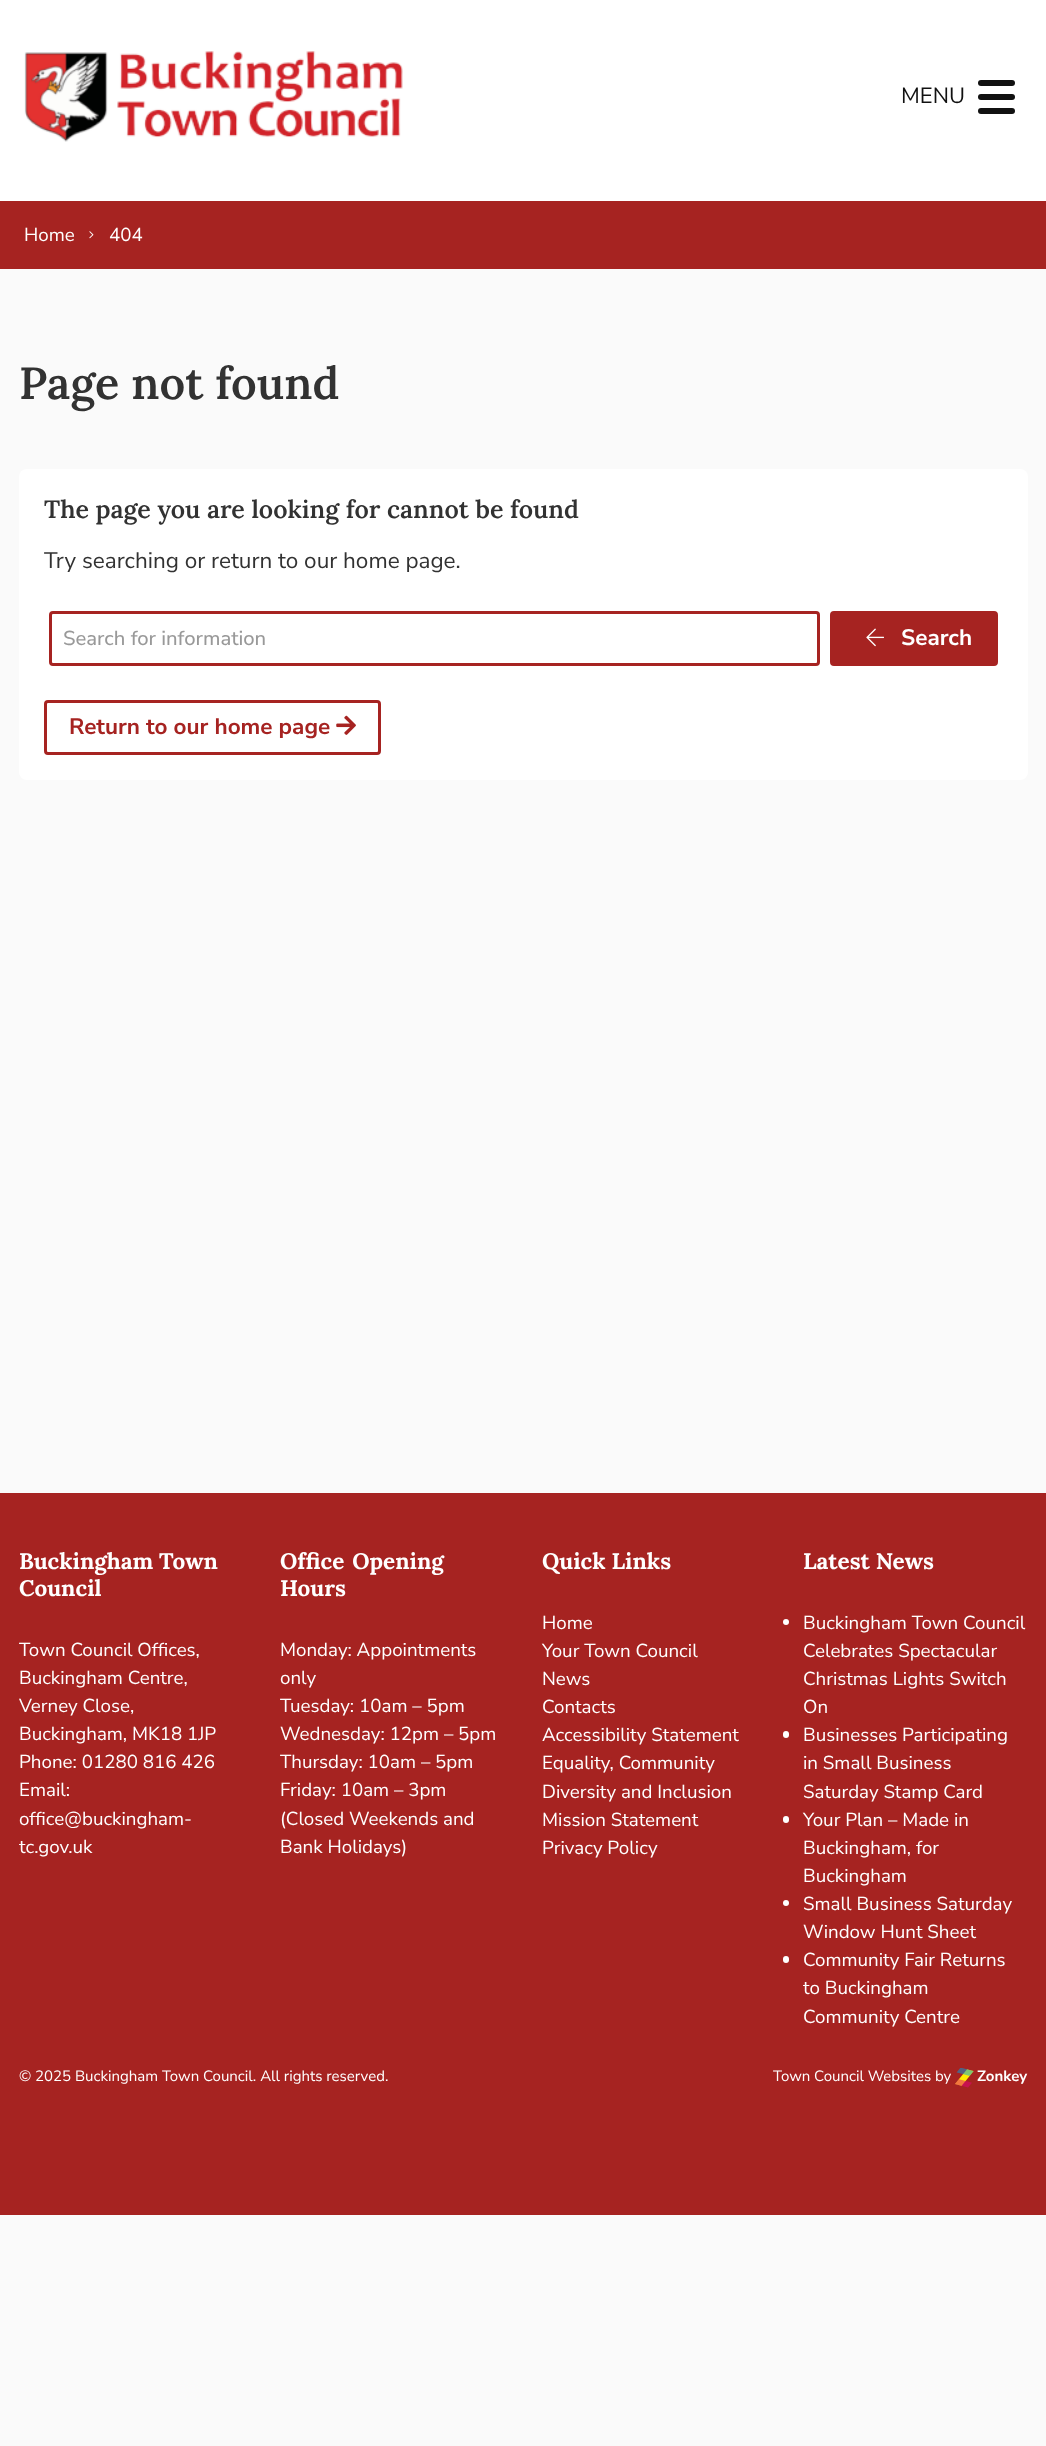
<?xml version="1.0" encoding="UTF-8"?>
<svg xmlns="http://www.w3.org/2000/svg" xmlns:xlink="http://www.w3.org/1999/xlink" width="1046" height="2446">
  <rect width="100%" height="100%" fill="#fafafa" />
  <rect width="1046" height="201" fill="#ffffff" />
  <image x="24" y="51" width="379" height="91" xlink:href="image1.png" />
  <rect x="978" y="108" width="37" height="6" rx="3" fill="#111111" />
  <rect x="978" y="80" width="37" height="6" rx="3" fill="#111111" />
  <rect x="978" y="94" width="37" height="6" rx="3" fill="#111111" />
  <rect y="201" width="1046" height="68" fill="#a62321" />
  <image x="89" y="231" width="5" height="8" xlink:href="image2.png" />
  <rect x="19" y="469" width="1009" height="311" rx="8" fill="#ffffff" />
  <rect x="50.5" y="612.5" width="768" height="52" rx="2.5" fill="none" stroke="#a62321" stroke-width="3" />
  <rect x="831.5" y="612.5" width="165" height="52" rx="2.5" fill="#a62321" stroke="#a62321" stroke-width="3" />
  <image x="866" y="628" width="18" height="19" xlink:href="image3.png" />
  <rect x="45.5" y="701.5" width="334" height="52" rx="2.5" fill="none" stroke="#a62321" stroke-width="3" />
  <image x="336" y="715" width="20" height="20" xlink:href="image4.png" />
  <rect y="1493" width="1046" height="722" fill="#a62321" />
  <circle cx="786" cy="1622" r="3" fill="#ffffff" />
  <rect x="783" y="1731" width="6" height="7" rx="3" fill="#ffffff" />
  <rect x="783" y="1816" width="6" height="7" rx="3" fill="#ffffff" />
  <circle cx="786" cy="1903" r="3" fill="#ffffff" />
  <rect x="783" y="1956" width="6" height="7" rx="3" fill="#ffffff" />
  <image x="955" y="2068" width="19" height="20" xlink:href="image5.png" />
  <text x="901" y="103" style="font-family: Nunito Sans; font-size: 22px; fill: #111111">MENU</text>
  <text x="24" y="241" style="font-family: Nunito Sans; font-size: 18.75px; fill: #ffffff">Home</text>
  <text x="109" y="241" style="font-family: Nunito Sans; font-size: 18.75px; fill: #ffffff">404</text>
  <text x="19" y="399" style="font-family: Lora; font-size: 45px; font-weight: 600; fill: #323232">Page not found</text>
  <text x="44" y="518" style="font-family: Lora; font-size: 25px; font-weight: 600; fill: #323232">The page you are looking for cannot be found</text>
  <text x="44" y="568" style="font-family: Nunito Sans; font-size: 22.5px; fill: #323232">Try searching or return to our home page.</text>
  <text x="63" y="645" style="font-family: Nunito Sans; font-size: 20.25px; font-weight: 500; fill: #999999">Search for information</text>
  <text x="901" y="645" style="font-family: Nunito Sans; font-size: 22.5px; font-weight: bold; fill: #ffffff">Search</text>
  <text x="69" y="734" style="font-family: Nunito Sans; font-size: 22.5px; font-weight: bold; fill: #a62321">Return to our home page</text>
  <text x="19" y="1569" style="font-family: Lora; font-size: 22.5px; font-weight: bold; fill: #ffffff">Buckingham Town</text>
  <text x="19" y="1596" style="font-family: Lora; font-size: 22.5px; font-weight: bold; fill: #ffffff">Council</text>
  <text x="19" y="1656" style="font-family: Nunito Sans; font-size: 18.75px; fill: #ffffff">Town Council Offices,</text>
  <text x="19" y="1684" style="font-family: Nunito Sans; font-size: 18.75px; fill: #ffffff">Buckingham Centre,</text>
  <text x="19" y="1712" style="font-family: Nunito Sans; font-size: 18.75px; fill: #ffffff">Verney Close,</text>
  <text x="19" y="1740" style="font-family: Nunito Sans; font-size: 18.75px; fill: #ffffff">Buckingham, MK18 1JP</text>
  <text x="19" y="1768" style="font-family: Nunito Sans; font-size: 18.75px; fill: #ffffff">Phone: 01280 816 426</text>
  <text x="19" y="1796" style="font-family: Nunito Sans; font-size: 18.75px; fill: #ffffff">Email:</text>
  <text x="19" y="1825" style="font-family: Nunito Sans; font-size: 18.75px; fill: #ffffff">office@buckingham-</text>
  <text x="19" y="1853" style="font-family: Nunito Sans; font-size: 18.75px; fill: #ffffff">tc.gov.uk</text>
  <text x="280" y="1569" word-spacing="2" style="font-family: Lora; font-size: 22.5px; font-weight: bold; fill: #ffffff">Office Opening</text>
  <text x="280" y="1596" style="font-family: Lora; font-size: 22.5px; font-weight: bold; fill: #ffffff">Hours</text>
  <text x="280" y="1656" style="font-family: Nunito Sans; font-size: 18.75px; fill: #ffffff">Monday: Appointments</text>
  <text x="280" y="1684" style="font-family: Nunito Sans; font-size: 18.75px; fill: #ffffff">only</text>
  <text x="280" y="1712" style="font-family: Nunito Sans; font-size: 18.75px; fill: #ffffff">Tuesday: 10am – 5pm</text>
  <text x="280" y="1740" style="font-family: Nunito Sans; font-size: 18.75px; fill: #ffffff">Wednesday: 12pm – 5pm</text>
  <text x="280" y="1768" style="font-family: Nunito Sans; font-size: 18.75px; fill: #ffffff">Thursday: 10am – 5pm</text>
  <text x="280" y="1796" style="font-family: Nunito Sans; font-size: 18.75px; fill: #ffffff">Friday: 10am – 3pm</text>
  <text x="280" y="1825" style="font-family: Nunito Sans; font-size: 18.75px; fill: #ffffff">(Closed Weekends and</text>
  <text x="280" y="1853" style="font-family: Nunito Sans; font-size: 18.75px; fill: #ffffff">Bank Holidays)</text>
  <text x="542" y="1569" style="font-family: Lora; font-size: 22.5px; font-weight: bold; fill: #ffffff">Quick Links</text>
  <text x="542" y="1629" style="font-family: Nunito Sans; font-size: 18.75px; fill: #ffffff">Home</text>
  <text x="542" y="1657" style="font-family: Nunito Sans; font-size: 18.75px; fill: #ffffff">Your Town Council</text>
  <text x="542" y="1685" style="font-family: Nunito Sans; font-size: 18.75px; fill: #ffffff">News</text>
  <text x="542" y="1713" style="font-family: Nunito Sans; font-size: 18.75px; fill: #ffffff">Contacts</text>
  <text x="542" y="1741" style="font-family: Nunito Sans; font-size: 18.75px; fill: #ffffff">Accessibility Statement</text>
  <text x="542" y="1769" style="font-family: Nunito Sans; font-size: 18.75px; fill: #ffffff">Equality, Community</text>
  <text x="542" y="1798" style="font-family: Nunito Sans; font-size: 18.75px; fill: #ffffff">Diversity and Inclusion</text>
  <text x="542" y="1826" style="font-family: Nunito Sans; font-size: 18.75px; fill: #ffffff">Mission Statement</text>
  <text x="542" y="1854" style="font-family: Nunito Sans; font-size: 18.75px; fill: #ffffff">Privacy Policy</text>
  <text x="803" y="1569" style="font-family: Lora; font-size: 22.5px; font-weight: bold; fill: #ffffff">Latest News</text>
  <text x="803" y="1629" style="font-family: Nunito Sans; font-size: 18.75px; fill: #ffffff">Buckingham Town Council</text>
  <text x="803" y="1657" style="font-family: Nunito Sans; font-size: 18.75px; fill: #ffffff">Celebrates Spectacular</text>
  <text x="803" y="1685" style="font-family: Nunito Sans; font-size: 18.75px; fill: #ffffff">Christmas Lights Switch</text>
  <text x="803" y="1713" style="font-family: Nunito Sans; font-size: 18.75px; fill: #ffffff">On</text>
  <text x="803" y="1741" style="font-family: Nunito Sans; font-size: 18.75px; fill: #ffffff">Businesses Participating</text>
  <text x="803" y="1769" style="font-family: Nunito Sans; font-size: 18.75px; fill: #ffffff">in Small Business</text>
  <text x="803" y="1798" style="font-family: Nunito Sans; font-size: 18.75px; fill: #ffffff">Saturday Stamp Card</text>
  <text x="803" y="1826" style="font-family: Nunito Sans; font-size: 18.75px; fill: #ffffff">Your Plan – Made in</text>
  <text x="803" y="1854" style="font-family: Nunito Sans; font-size: 18.75px; fill: #ffffff">Buckingham, for</text>
  <text x="803" y="1882" style="font-family: Nunito Sans; font-size: 18.75px; fill: #ffffff">Buckingham</text>
  <text x="803" y="1910" style="font-family: Nunito Sans; font-size: 18.75px; fill: #ffffff">Small Business Saturday</text>
  <text x="803" y="1938" style="font-family: Nunito Sans; font-size: 18.75px; fill: #ffffff">Window Hunt Sheet</text>
  <text x="803" y="1966" style="font-family: Nunito Sans; font-size: 18.75px; fill: #ffffff">Community Fair Returns</text>
  <text x="803" y="1994" style="font-family: Nunito Sans; font-size: 18.75px; fill: #ffffff">to Buckingham</text>
  <text x="803" y="2023" style="font-family: Nunito Sans; font-size: 18.75px; fill: #ffffff">Community Centre</text>
  <text x="19" y="2081" style="font-family: Nunito Sans; font-size: 15px; fill: #ffffff">© 2025 Buckingham Town Council. All rights reserved.</text>
  <text x="773" y="2081" style="font-family: Nunito Sans; font-size: 15px; fill: #ffffff">Town Council Websites by</text>
  <text x="977" y="2081" style="font-family: Nunito Sans; font-size: 15px; font-weight: bold; fill: #ffffff">Zonkey</text>
</svg>
